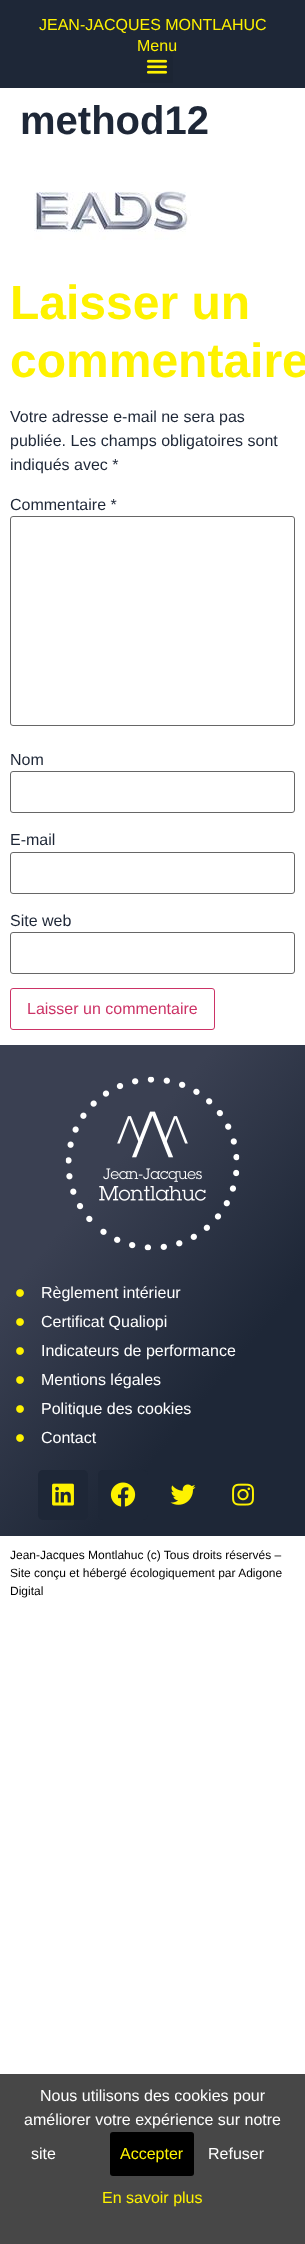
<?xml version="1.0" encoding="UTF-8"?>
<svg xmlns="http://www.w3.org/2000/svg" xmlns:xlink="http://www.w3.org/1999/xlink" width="305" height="2244">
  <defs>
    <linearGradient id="g1" gradientUnits="userSpaceOnUse" x1="-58" y1="1114" x2="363" y2="1467"><stop offset="0.3" stop-color="#3a4052" /><stop offset="0.7" stop-color="#1e2737" /></linearGradient>
  </defs>
  <rect width="100%" height="100%" fill="#ffffff" />
  <rect y="2074" width="305" height="170" fill="#474747" />
  <rect width="305" height="88" fill="#1e2737" />
  <rect x="140" y="50" width="33" height="33" fill="#000000" fill-opacity="0.05" />
  <image x="146" y="59" width="22" height="15" xlink:href="image1.png" />
  <image x="34" y="191" width="157" height="49" xlink:href="image2.png" />
  <rect x="10.5" y="516.5" width="284" height="209" rx="2.5" fill="none" stroke="#666666" />
  <rect x="10.5" y="771.5" width="284" height="41" rx="2.5" fill="none" stroke="#666666" />
  <rect x="10.5" y="852.5" width="284" height="41" rx="2.5" fill="none" stroke="#666666" />
  <rect x="10.5" y="932.5" width="284" height="41" rx="2.5" fill="none" stroke="#666666" />
  <rect x="10.5" y="988.5" width="204" height="41" rx="2.5" fill="none" stroke="#cc3366" />
  <rect y="1045" width="305" height="491" fill="url(#g1)" />
  <image x="65" y="1076" width="175" height="175" xlink:href="image3.png" />
  <image x="16" y="1289" width="8" height="8" xlink:href="image4.png" />
  <image x="16" y="1318" width="8" height="8" xlink:href="image5.png" />
  <image x="16" y="1347" width="8" height="8" xlink:href="image6.png" />
  <image x="16" y="1376" width="8" height="8" xlink:href="image7.png" />
  <image x="16" y="1405" width="8" height="8" xlink:href="image8.png" />
  <image x="16" y="1434" width="8" height="8" xlink:href="image9.png" />
  <rect x="38" y="1470" width="50" height="50" rx="5" fill="#1e2737" />
  <image x="52" y="1483" width="22" height="23" xlink:href="image10.png" />
  <rect x="98" y="1470" width="50" height="50" rx="5" fill="#1e2737" />
  <image x="110" y="1482" width="26" height="25" xlink:href="image11.png" />
  <image x="170" y="1484" width="26" height="21" xlink:href="image12.png" />
  <image x="232" y="1483" width="22" height="23" xlink:href="image13.png" />
  <rect x="110" y="2132" width="84" height="44" rx="3" fill="#000000" />
  <text x="39" y="30" style="font-family: Liberation Sans; font-size: 16px; fill: #fef200">JEAN-JACQUES MONTLAHUC</text>
  <text x="137" y="51" style="font-family: Liberation Sans; font-size: 16px; fill: #fef200">Menu</text>
  <text x="20" y="134" style="font-family: Liberation Sans; font-size: 40px; font-weight: bold; fill: #1e2737">method12</text>
  <text x="10" y="319" style="font-family: Liberation Sans; font-size: 48px; font-weight: bold; fill: #fef200">Laisser un</text>
  <text x="10" y="377" style="font-family: Liberation Sans; font-size: 48px; font-weight: bold; fill: #fef200">commentaire</text>
  <text x="10" y="422" style="font-family: Liberation Sans; font-size: 16px; fill: #1e2737">Votre adresse e-mail ne sera pas</text>
  <text x="10" y="446" style="font-family: Liberation Sans; font-size: 16px; fill: #1e2737">publiée. Les champs obligatoires sont</text>
  <text x="10" y="470" style="font-family: Liberation Sans; font-size: 16px; fill: #1e2737">indiqués avec *</text>
  <text x="10" y="510" style="font-family: Liberation Sans; font-size: 16px; fill: #1e2737">Commentaire *</text>
  <text x="10" y="765" style="font-family: Liberation Sans; font-size: 16px; fill: #1e2737">Nom</text>
  <text x="10" y="845" style="font-family: Liberation Sans; font-size: 16px; fill: #1e2737">E-mail</text>
  <text x="10" y="926" style="font-family: Liberation Sans; font-size: 16px; fill: #1e2737">Site web</text>
  <text x="27" y="1014" style="font-family: Liberation Sans; font-size: 16px; fill: #cc3366">Laisser un commentaire</text>
  <text x="41" y="1298" style="font-family: Liberation Sans; font-size: 16px; fill: #ffffff">Règlement intérieur</text>
  <text x="41" y="1327" style="font-family: Liberation Sans; font-size: 16px; fill: #ffffff">Certificat Qualiopi</text>
  <text x="41" y="1356" style="font-family: Liberation Sans; font-size: 16px; fill: #ffffff">Indicateurs de performance</text>
  <text x="41" y="1385" style="font-family: Liberation Sans; font-size: 16px; fill: #ffffff">Mentions légales</text>
  <text x="41" y="1414" style="font-family: Liberation Sans; font-size: 16px; fill: #ffffff">Politique des cookies</text>
  <text x="41" y="1443" style="font-family: Liberation Sans; font-size: 16px; fill: #ffffff">Contact</text>
  <text x="10" y="1559" style="font-family: Liberation Sans; font-size: 12px; fill: #000000">Jean-Jacques Montlahuc (c) Tous droits réservés –</text>
  <text x="10" y="1577" style="font-family: Liberation Sans; font-size: 12px; fill: #000000">Site conçu et hébergé écologiquement par Adigone</text>
  <text x="10" y="1595" style="font-family: Liberation Sans; font-size: 12px; fill: #000000">Digital</text>
  <text x="40" y="2101" style="font-family: Liberation Sans; font-size: 16px; fill: #ffffff">Nous utilisons des cookies pour</text>
  <text x="24" y="2125" style="font-family: Liberation Sans; font-size: 16px; fill: #ffffff">améliorer votre expérience sur notre</text>
  <text x="31" y="2159" style="font-family: Liberation Sans; font-size: 16px; fill: #ffffff">site</text>
  <text x="120" y="2159" style="font-family: Liberation Sans; font-size: 16px; fill: #fef200">Accepter</text>
  <text x="208" y="2159" style="font-family: Liberation Sans; font-size: 16px; fill: #ffffff">Refuser</text>
  <text x="102" y="2203" style="font-family: Liberation Sans; font-size: 16px; fill: #fef200">En savoir plus</text>
</svg>
